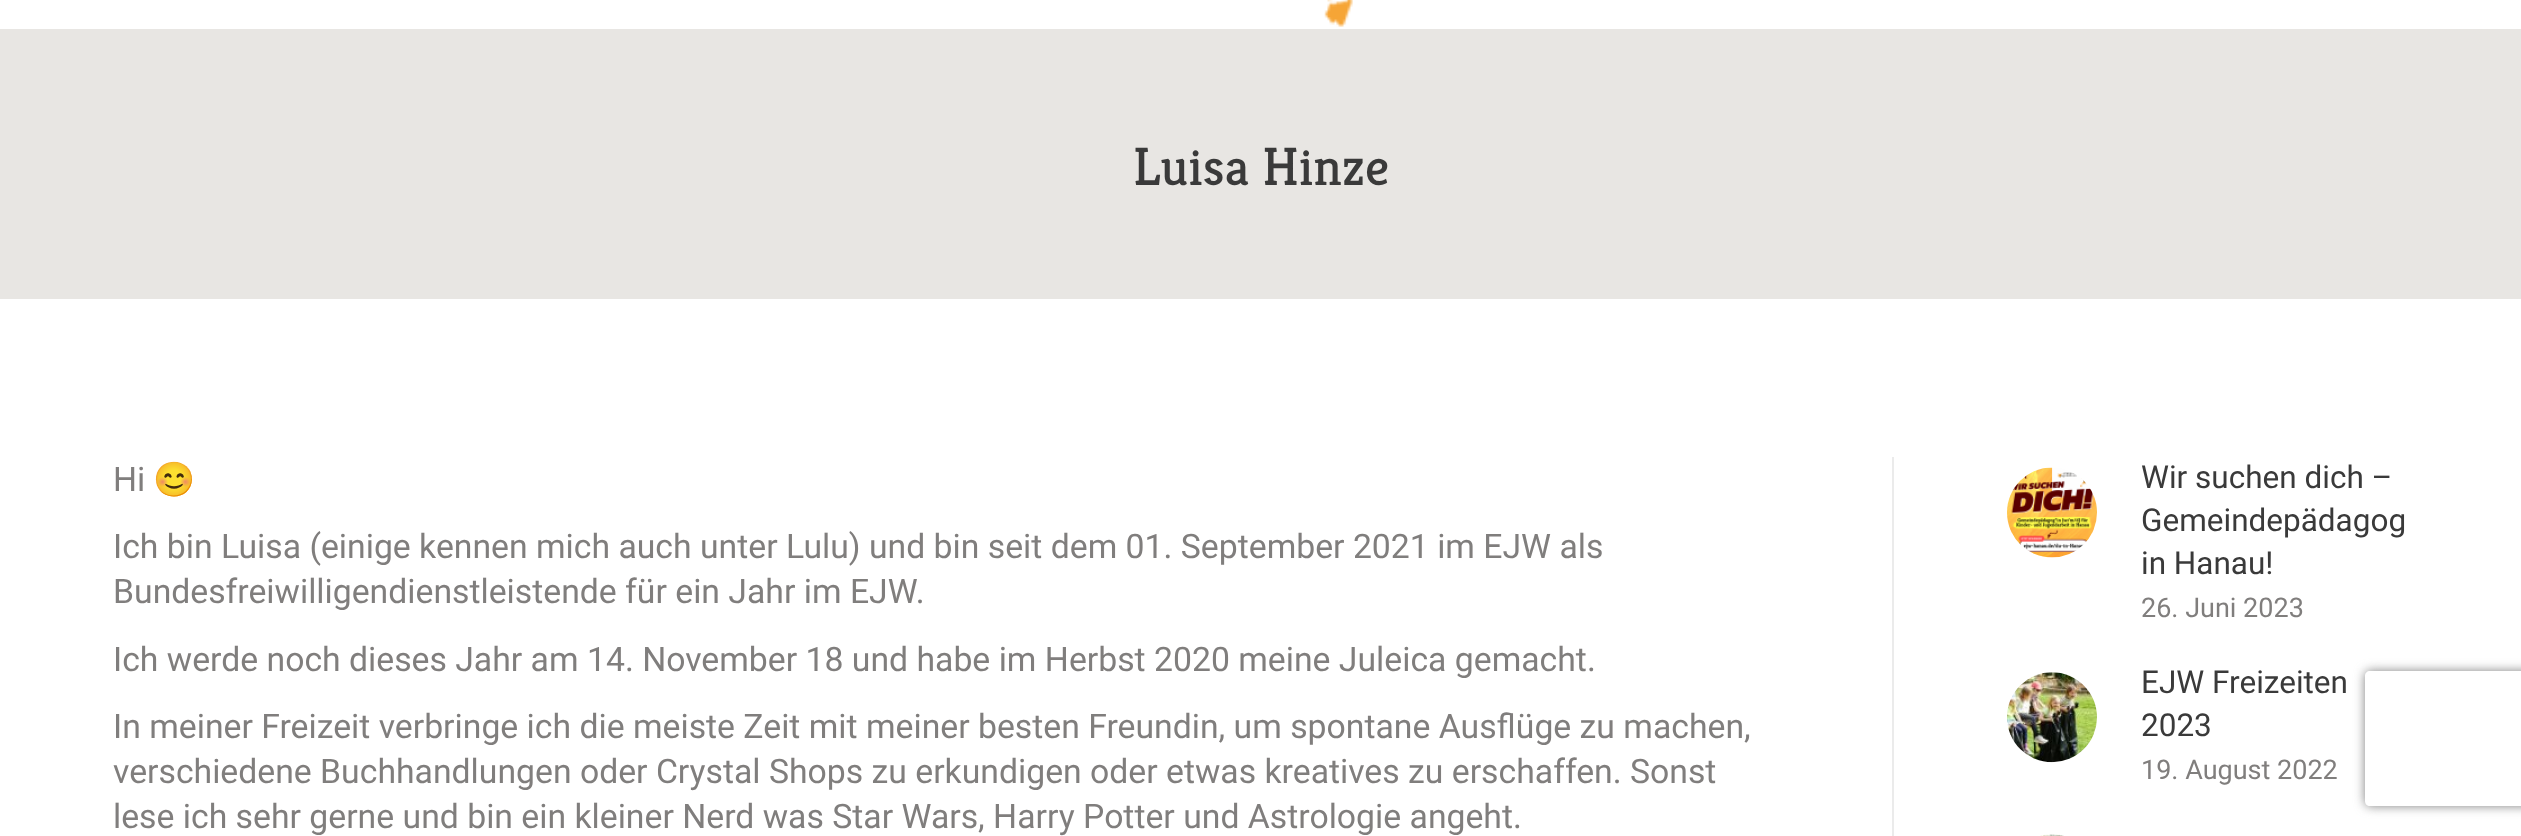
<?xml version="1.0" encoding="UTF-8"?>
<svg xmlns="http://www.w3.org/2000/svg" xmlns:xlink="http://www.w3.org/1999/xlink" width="2521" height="836">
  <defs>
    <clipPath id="clip1"><path d="M 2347 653 h 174 v 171 h -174 z m 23 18 h 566 c 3 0 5 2 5 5 v 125 c 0 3 -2 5 -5 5 h -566 c -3 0 -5 -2 -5 -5 v -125 c 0 -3 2 -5 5 -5 z" clip-rule="evenodd" /></clipPath>
  </defs>
  <rect width="100%" height="100%" fill="#ffffff" />
  <image x="1324" y="0" width="29" height="27" xlink:href="image1.png" />
  <rect y="29" width="2521" height="270" fill="#e8e6e3" />
  <rect x="1892" y="457" width="2" height="379" fill="#ebebeb" />
  <image x="2007" y="467" width="90" height="91" xlink:href="image2.png" />
  <image x="2007" y="672" width="90" height="91" xlink:href="image3.png" />
  <image x="2040" y="834" width="24" height="2" xlink:href="image4.png" />
  <g clip-path="url(#clip1)">
    <rect x="2365" y="671" width="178" height="135" rx="5" fill="#808080" filter="blur(5.5px)" />
  </g>
  <text x="1133" y="185" style="font-family: Kreon; font-size: 54px; fill: #3a3a3a">Luisa Hinze</text>
  <text x="113" y="491" style="font-family: Roboto; font-size: 33.75px; fill: #807e7d">Hi</text>
  <text x="153" y="491" style="font-family: Noto Color Emoji; font-size: 33.75px; fill: #807e7d">😊</text>
  <text x="113" y="558" style="font-family: Roboto; font-size: 33.75px; fill: #807e7d">Ich bin Luisa (einige kennen mich auch unter Lulu) und bin seit dem 01. September 2021 im EJW als</text>
  <text x="113" y="603" style="font-family: Roboto; font-size: 33.75px; fill: #807e7d">Bundesfreiwilligendienstleistende für ein Jahr im EJW.</text>
  <text x="113" y="671" style="font-family: Roboto; font-size: 33.75px; fill: #807e7d">Ich werde noch dieses Jahr am 14. November 18 und habe im Herbst 2020 meine Juleica gemacht.</text>
  <text x="113" y="738" style="font-family: Roboto; font-size: 33.75px; fill: #807e7d">In meiner Freizeit verbringe ich die meiste Zeit mit meiner besten Freundin, um spontane Ausflüge zu machen,</text>
  <text x="113" y="783" style="font-family: Roboto; font-size: 33.75px; fill: #807e7d">verschiedene Buchhandlungen oder Crystal Shops zu erkundigen oder etwas kreatives zu erschaffen. Sonst</text>
  <text x="113" y="828" style="font-family: Roboto; font-size: 33.75px; fill: #807e7d">lese ich sehr gerne und bin ein kleiner Nerd was Star Wars, Harry Potter und Astrologie angeht.</text>
  <text x="2141" y="488" style="font-family: Roboto; font-size: 31.5px; fill: #3a3a3a">Wir suchen dich –</text>
  <text x="2141" y="531" style="font-family: Roboto; font-size: 31.5px; fill: #3a3a3a">Gemeindepädagog</text>
  <text x="2141" y="574" style="font-family: Roboto; font-size: 31.5px; fill: #3a3a3a">in Hanau!</text>
  <text x="2141" y="617" style="font-family: Roboto; font-size: 27px; fill: #807e7d">26. Juni 2023</text>
  <text x="2141" y="693" style="font-family: Roboto; font-size: 31.5px; fill: #3a3a3a">EJW Freizeiten</text>
  <text x="2141" y="736" style="font-family: Roboto; font-size: 31.5px; fill: #3a3a3a">2023</text>
  <text x="2141" y="779" style="font-family: Roboto; font-size: 27px; fill: #807e7d">19. August 2022</text>
</svg>
